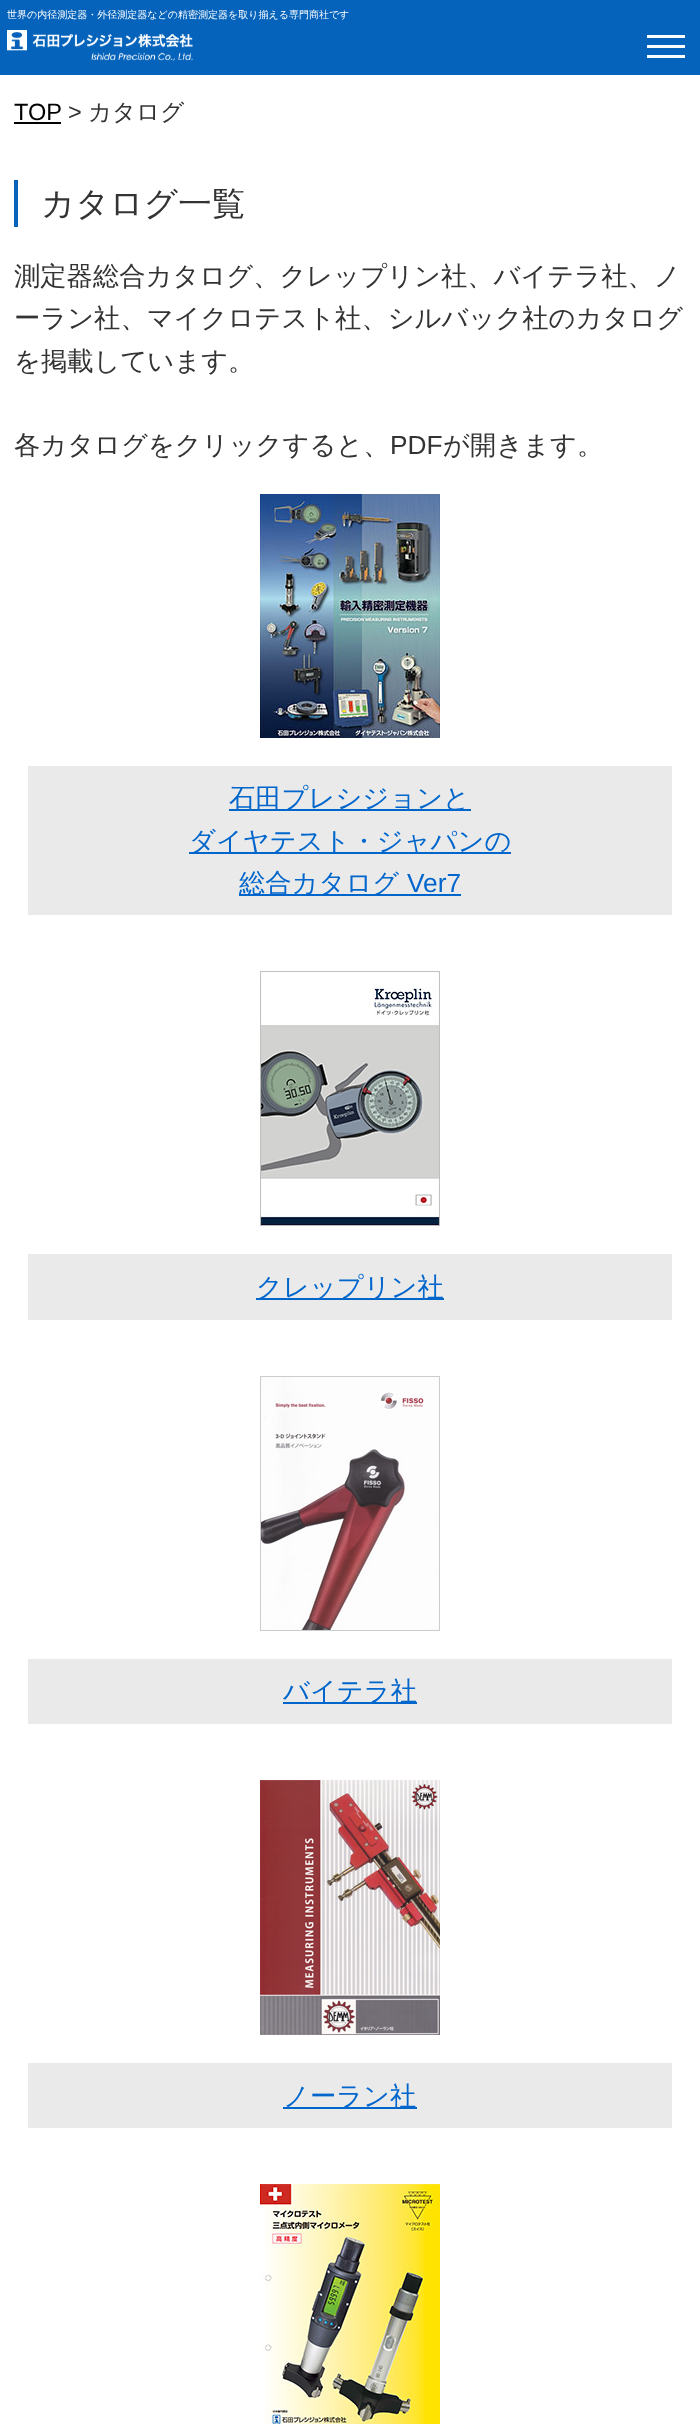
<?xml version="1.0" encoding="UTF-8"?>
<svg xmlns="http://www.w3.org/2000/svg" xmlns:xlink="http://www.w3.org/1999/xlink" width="700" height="2424">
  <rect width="100%" height="100%" fill="#ffffff" />
  <rect width="700" height="75" fill="#0563bb" />
  <image x="7" y="30" width="186" height="31" xlink:href="image1.png" />
  <rect x="647" y="35" width="38" height="3" fill="#ffffff" />
  <rect x="647" y="45" width="38" height="3" fill="#ffffff" />
  <rect x="647" y="55" width="38" height="3" fill="#ffffff" />
  <rect x="14" y="122" width="47" height="2" fill="#000000" />
  <rect x="14" y="180" width="4" height="47" fill="#0563bb" />
  <image x="260" y="494" width="180" height="244" xlink:href="image2.png" />
  <rect x="28" y="766" width="644" height="149" fill="#eaeaea" />
  <rect x="229" y="809" width="242" height="2" fill="#0066cc" />
  <rect x="189" y="852" width="322" height="2" fill="#0066cc" />
  <rect x="239" y="894" width="222" height="2" fill="#0066cc" />
  <image x="260" y="971" width="180" height="255" xlink:href="image3.png" />
  <rect x="28" y="1254" width="644" height="66" fill="#eaeaea" />
  <rect x="256" y="1298" width="188" height="2" fill="#0066cc" />
  <image x="260" y="1376" width="180" height="255" xlink:href="image4.png" />
  <rect x="28" y="1659" width="644" height="65" fill="#eaeaea" />
  <rect x="283" y="1702" width="134" height="2" fill="#0066cc" />
  <image x="260" y="1780" width="180" height="255" xlink:href="image5.png" />
  <rect x="28" y="2063" width="644" height="65" fill="#eaeaea" />
  <rect x="283" y="2107" width="134" height="2" fill="#0066cc" />
  <image x="260" y="2184" width="180" height="240" xlink:href="image6.png" />
  <text x="7" y="18" style="font-family: WenQuanYi Zen Hei; font-size: 10px; font-weight: 500; fill: #ffffff">世界の内径測定器・外径測定器などの精密測定器を取り揃える専門商社です</text>
  <text x="14" y="120" style="font-family: Liberation Sans; font-size: 23.5px; fill: #000000">TOP</text>
  <text x="68" y="120" style="font-family: Liberation Sans; font-size: 23.5px; fill: #333333">&gt;</text>
  <text x="88" y="120" style="font-family: WenQuanYi Zen Hei; font-size: 23.5px; font-weight: 500; fill: #333333">カタログ</text>
  <text x="41" y="215" style="font-family: WenQuanYi Zen Hei; font-size: 33.5px; font-weight: 500; fill: #333333">カタログ一覧</text>
  <text x="14" y="285" style="font-family: WenQuanYi Zen Hei; font-size: 26.3px; font-weight: 500; fill: #333333">測定器総合カタログ、クレップリン社、バイテラ社、ノ</text>
  <text x="14" y="327" style="font-family: WenQuanYi Zen Hei; font-size: 26.3px; font-weight: 500; fill: #333333">ーラン社、マイクロテスト社、シルバック社のカタログ</text>
  <text x="14" y="370" style="font-family: WenQuanYi Zen Hei; font-size: 26.3px; font-weight: 500; fill: #333333">を掲載しています。</text>
  <text x="14" y="454" style="font-family: WenQuanYi Zen Hei; font-size: 26.3px; font-weight: 500; fill: #333333">各カタログをクリックすると、</text>
  <text x="390" y="454" style="font-family: Liberation Sans; font-size: 26.3px; fill: #333333">PDF</text>
  <text x="443" y="454" style="font-family: WenQuanYi Zen Hei; font-size: 26.3px; font-weight: 500; fill: #333333">が開きます。</text>
  <text x="229" y="807" style="font-family: WenQuanYi Zen Hei; font-size: 26.3px; font-weight: 500; fill: #0066cc">石田プレシジョンと</text>
  <text x="189" y="850" style="font-family: WenQuanYi Zen Hei; font-size: 26.3px; font-weight: 500; fill: #0066cc">ダイヤテスト・ジャパンの</text>
  <text x="239" y="892" style="font-family: WenQuanYi Zen Hei; font-size: 26.3px; font-weight: 500; fill: #0066cc">総合カタログ</text>
  <text x="407" y="892" style="font-family: Liberation Sans; font-size: 26.3px; fill: #0066cc">Ver7</text>
  <text x="256" y="1296" style="font-family: WenQuanYi Zen Hei; font-size: 26.3px; font-weight: 500; fill: #0066cc">クレップリン社</text>
  <text x="283" y="1700" style="font-family: WenQuanYi Zen Hei; font-size: 26.3px; font-weight: 500; fill: #0066cc">バイテラ社</text>
  <text x="283" y="2105" style="font-family: WenQuanYi Zen Hei; font-size: 26.3px; font-weight: 500; fill: #0066cc">ノーラン社</text>
</svg>
